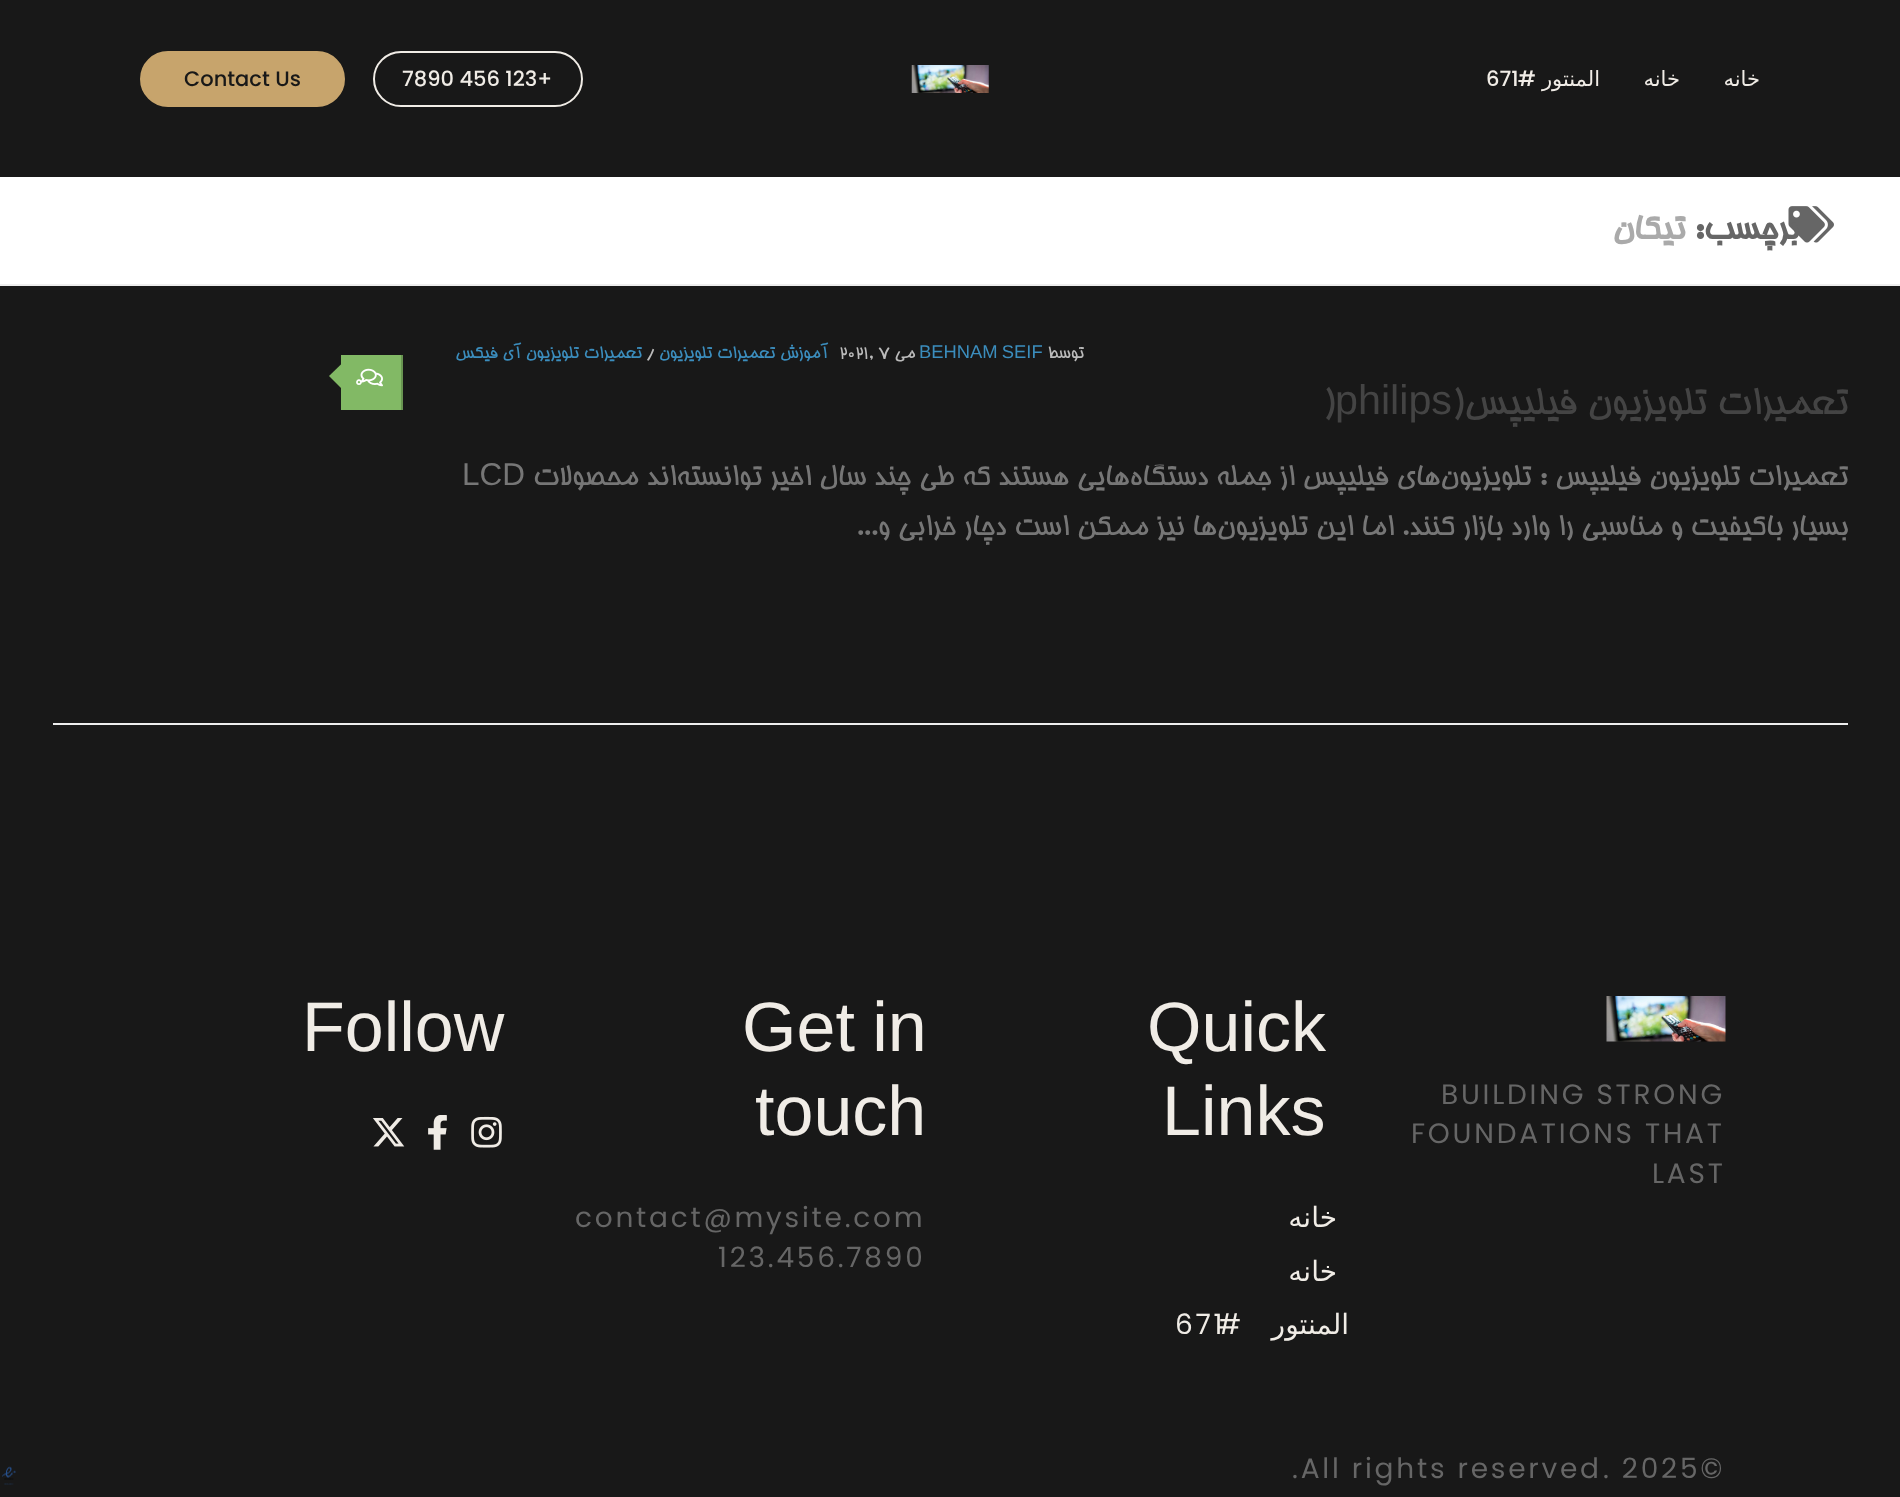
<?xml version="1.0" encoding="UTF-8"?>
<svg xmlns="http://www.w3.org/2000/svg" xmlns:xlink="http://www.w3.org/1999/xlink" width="1900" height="1497">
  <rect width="100%" height="100%" fill="#181818" />
  <image x="911" y="65" width="78" height="28" xlink:href="image1.png" />
  <rect x="374" y="52" width="208" height="54" rx="27" fill="none" stroke="#f0ece6" stroke-width="2" />
  <rect x="141" y="52" width="203" height="54" rx="27" fill="#c7a46c" stroke="#c7a46c" stroke-width="2" />
  <rect y="177" width="1900" height="107" fill="#ffffff" />
  <rect y="284" width="1900" height="2" fill="#eeeeee" />
  <image x="1788" y="206" width="46" height="37" xlink:href="image2.png" />
  <rect x="53" y="723" width="1795" height="2" fill="#eeeeee" />
  <rect x="341" y="355" width="60" height="55" fill="#82b965" />
  <rect x="401" y="355" width="2" height="55" fill="#689451" />
  <image x="360" y="368" width="23" height="19" xlink:href="image3.png" />
  <path d="M 345 360.5 v 31.5 l -16 -16 z" fill="#82b965" />
  <image x="1606" y="996" width="120" height="46" xlink:href="image4.png" />
  <image x="471" y="1116" width="31" height="32" xlink:href="image5.png" />
  <image x="428" y="1115" width="19" height="35" xlink:href="image6.png" />
  <image x="373" y="1118" width="32" height="29" xlink:href="image7.png" />
  <image x="2" y="1466" width="14" height="19" xlink:href="image8.png" />
  <text x="1760" y="86" style="font-family: DejaVu Sans; font-size: 21px; direction: rtl; fill: #f0ece6">خانه</text>
  <text x="1680" y="86" style="font-family: DejaVu Sans; font-size: 21px; direction: rtl; fill: #f0ece6">خانه</text>
  <text x="1600" y="86" style="font-family: DejaVu Sans; font-size: 21px; direction: rtl; fill: #f0ece6">المنتور</text>
  <text x="1536" y="86" style="font-family: Poppins; font-size: 21px; font-weight: 500; direction: rtl; fill: #f0ece6">#</text>
  <text x="1486" y="86" style="font-family: Poppins; font-size: 21px; font-weight: 500; fill: #f0ece6">671</text>
  <text x="402" y="86" style="font-family: Poppins; font-size: 21px; font-weight: 500; fill: #f0ece6">7890 456 123+</text>
  <text x="184" y="86" style="font-family: Poppins; font-size: 21px; font-weight: 500; fill: #181818">Contact Us</text>
  <text x="1798" y="239" style="font-family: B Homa; font-size: 36.5px; font-weight: bold; direction: rtl; fill: #666666">برچسب:</text>
  <text x="1685" y="239" style="font-family: B Homa; font-size: 36.5px; font-weight: bold; direction: rtl; fill: #aaaaaa">تیکان</text>
  <text x="1084" y="358" style="font-family: B Homa; font-size: 18.4px; direction: rtl; fill: #bbbbbb">توسط</text>
  <text x="919" y="358" word-spacing="-1" style="font-family: Liberation Sans; font-size: 18.4px; fill: #3b8dbd">BEHNAM SEIF</text>
  <text x="915" y="358" style="font-family: B Homa; font-size: 18.4px; direction: rtl; fill: #bbbbbb">می</text>
  <text x="839" y="358" style="font-family: B Homa; font-size: 18.4px; fill: #bbbbbb">2021, 7</text>
  <text x="828" y="358" style="font-family: B Homa; font-size: 18.4px; direction: rtl; fill: #3b8dbd">آموزش تعمیرات تلویزیون</text>
  <text x="646" y="358" style="font-family: B Homa; font-size: 18.4px; fill: #bbbbbb">/</text>
  <text x="642" y="358" style="font-family: B Homa; font-size: 18.4px; direction: rtl; fill: #3b8dbd">تعمیرات تلویزیون آی فیکس</text>
  <text x="1848" y="414" style="font-family: B Homa; font-size: 41.25px; direction: rtl; fill: #444444">تعمیرات تلویزیون فیلیپس(</text>
  <text x="1335" y="414" style="font-family: Liberation Sans; font-size: 41.25px; fill: #444444">philips</text>
  <text x="1323" y="414" style="font-family: B Homa; font-size: 41.25px; fill: #444444">)</text>
  <text x="1848" y="485" style="font-family: B Homa; font-size: 31.5px; direction: rtl; fill: #767676">تعمیرات تلویزیون فیلیپس : تلویزیون‌های فیلیپس از جمله دستگاه‌هایی هستند که طی چند سال اخیر توانسته‌اند محصولات</text>
  <text x="462" y="485" style="font-family: Liberation Sans; font-size: 31.5px; fill: #767676">LCD</text>
  <text x="1848" y="535" style="font-family: B Homa; font-size: 31.5px; direction: rtl; fill: #767676">بسیار باکیفیت و مناسبی را وارد بازار کنند. اما این تلویزیون‌ها نیز ممکن است دچار خرابی و...</text>
  <text x="354" y="386" style="font-family: B Homa; font-size: 21px; fill: #ffffff">0</text>
  <text x="1441" y="1104" style="font-family: Poppins; font-size: 28px; letter-spacing: 2.75px; fill: #666666">BUILDING STRONG</text>
  <text x="1411" y="1143" style="font-family: Poppins; font-size: 28px; letter-spacing: 2.75px; fill: #666666">FOUNDATIONS THAT</text>
  <text x="1652" y="1183" style="font-family: Poppins; font-size: 28px; letter-spacing: 2.75px; fill: #666666">LAST</text>
  <text x="1147" y="1051" style="font-family: Liberation Sans; font-size: 70px; fill: #f0ece6">Quick</text>
  <text x="1162" y="1135" style="font-family: Liberation Sans; font-size: 70px; fill: #f0ece6">Links</text>
  <text x="1337" y="1227" style="font-family: DejaVu Sans; font-size: 28px; letter-spacing: 2.75px; direction: rtl; fill: #f0ece6">خانه</text>
  <text x="1337" y="1281" style="font-family: DejaVu Sans; font-size: 28px; letter-spacing: 2.75px; direction: rtl; fill: #f0ece6">خانه</text>
  <text x="1349" y="1334" style="font-family: DejaVu Sans; font-size: 28px; letter-spacing: 2.75px; direction: rtl; fill: #f0ece6">المنتور</text>
  <text x="1175" y="1334" style="font-family: Poppins; font-size: 28px; letter-spacing: 2.75px; fill: #f0ece6">671</text>
  <text x="1244" y="1334" style="font-family: Poppins; font-size: 28px; letter-spacing: 2.75px; direction: rtl; fill: #f0ece6">#</text>
  <text x="742" y="1051" word-spacing="-2" style="font-family: Liberation Sans; font-size: 70px; fill: #f0ece6">Get in</text>
  <text x="755" y="1135" style="font-family: Liberation Sans; font-size: 70px; fill: #f0ece6">touch</text>
  <text x="575" y="1227" style="font-family: Poppins; font-size: 28px; letter-spacing: 2.75px; fill: #666666">contact@mysite.com</text>
  <text x="718" y="1267" style="font-family: Poppins; font-size: 28px; letter-spacing: 2.75px; fill: #666666">123.456.7890</text>
  <text x="302" y="1051" style="font-family: Liberation Sans; font-size: 70px; fill: #f0ece6">Follow</text>
  <text x="1603" y="1478" style="font-family: Poppins; font-size: 28px; letter-spacing: 2.75px; fill: #666666">. 2025©</text>
  <text x="1292" y="1478" style="font-family: Poppins; font-size: 28px; letter-spacing: 2.75px; fill: #666666">.All rights reserved</text>
</svg>
